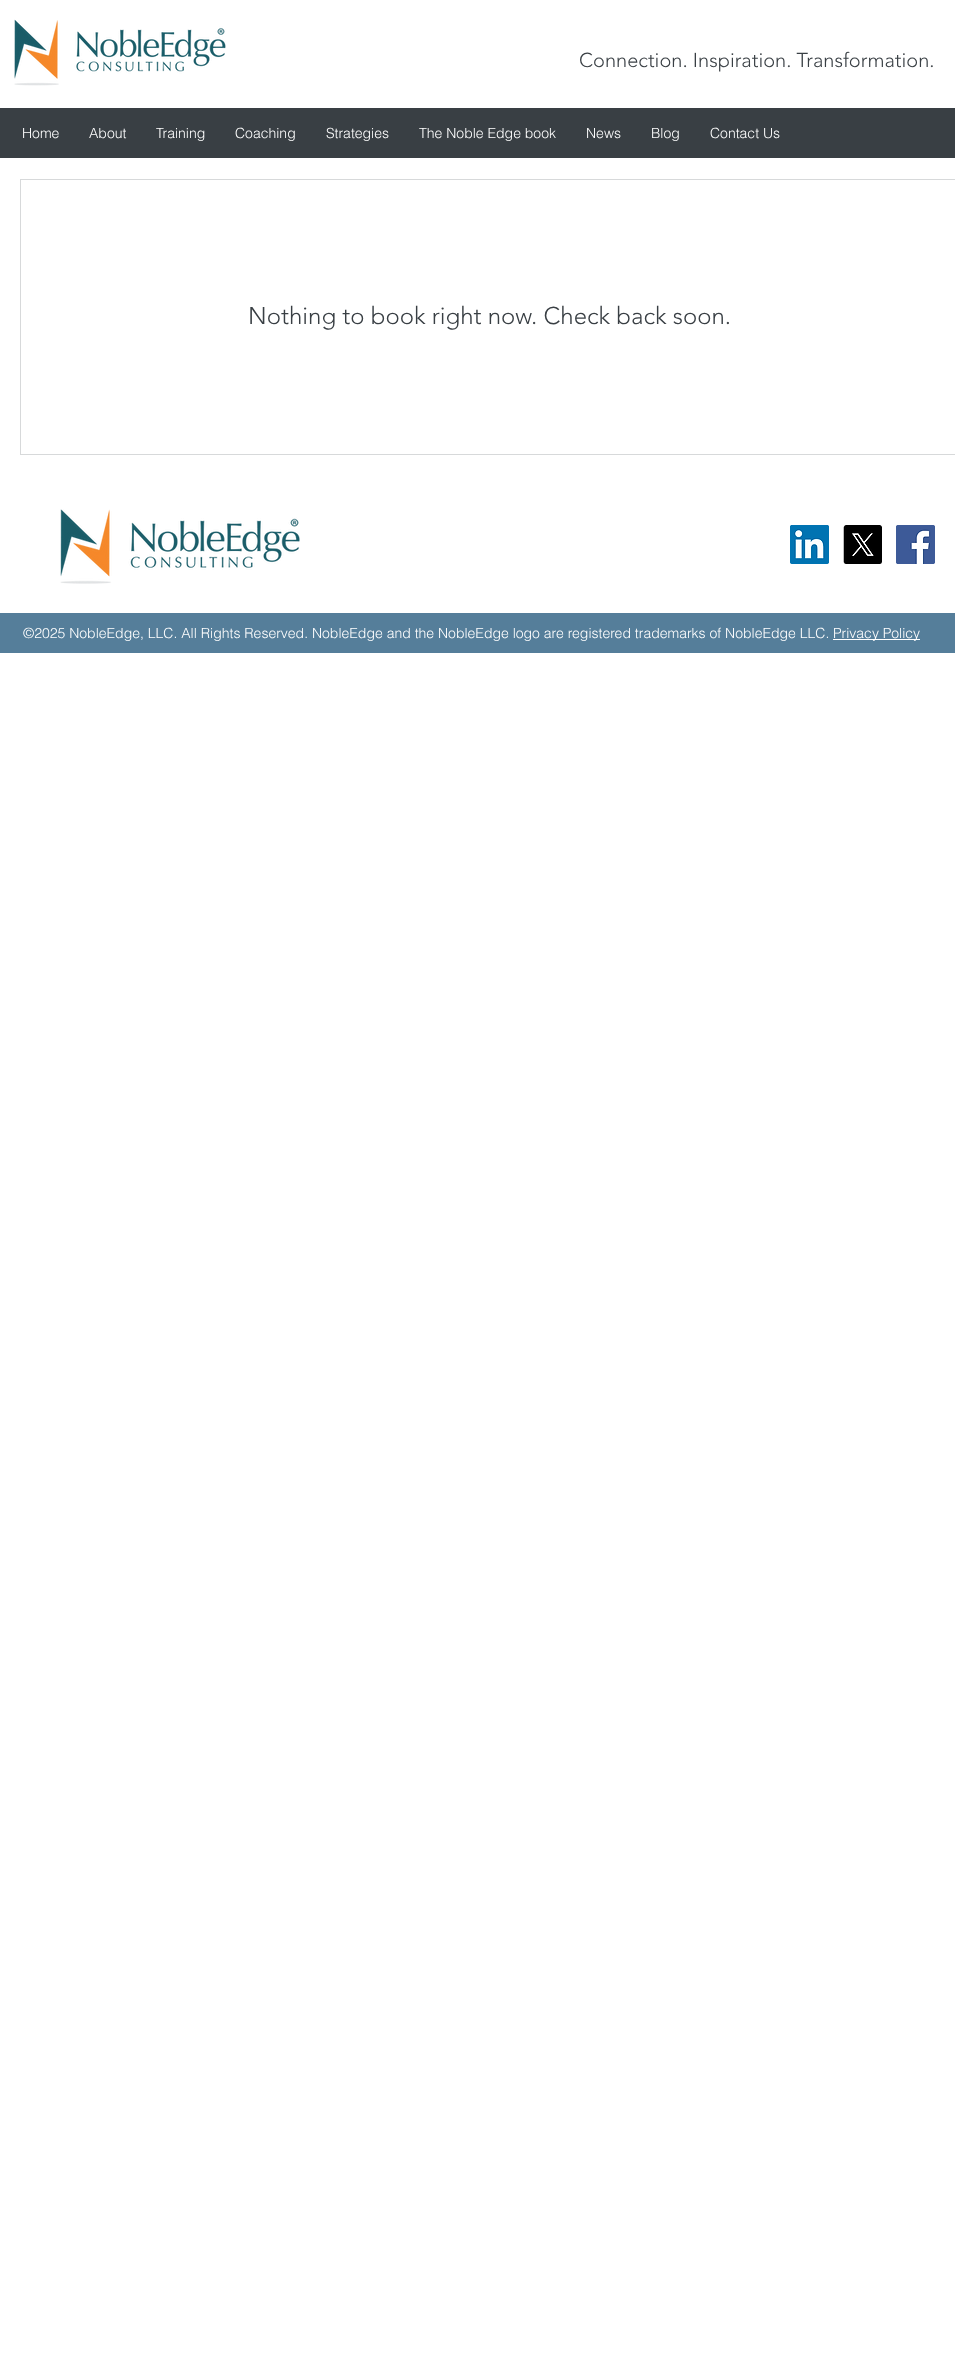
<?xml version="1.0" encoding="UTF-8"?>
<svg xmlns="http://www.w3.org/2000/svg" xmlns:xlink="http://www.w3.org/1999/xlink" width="955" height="2365">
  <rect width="100%" height="100%" fill="#ffffff" />
  <image x="14" y="19" width="212" height="67" xlink:href="image1.png" />
  <rect y="108" width="955" height="50" fill="#393f44" />
  <rect x="20.5" y="179.5" width="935" height="275" fill="none" stroke="#d7d9da" />
  <image x="60" y="509" width="240" height="75" xlink:href="image2.png" />
  <image x="790" y="525" width="39" height="39" xlink:href="image3.png" />
  <image x="843" y="525" width="39" height="39" xlink:href="image4.png" />
  <image x="896" y="525" width="39" height="39" xlink:href="image5.png" />
  <rect y="613" width="955" height="40" fill="#557e9a" />
  <rect x="833" y="639" width="87" height="1" fill="#ffffff" />
  <text x="579" y="67" style="font-family: 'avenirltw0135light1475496'; font-size: 20px; font-weight: 300; fill: #393f44">Connection. Inspiration. Transformation.</text>
  <text x="22" y="138" style="font-family: helvetica; font-size: 14px; font-weight: 300; fill: #ffffff">Home</text>
  <text x="89" y="138" style="font-family: helvetica; font-size: 14px; font-weight: 300; fill: #ffffff">About</text>
  <text x="156" y="138" style="font-family: helvetica; font-size: 14px; font-weight: 300; fill: #ffffff">Training</text>
  <text x="235" y="138" style="font-family: helvetica; font-size: 14px; font-weight: 300; fill: #ffffff">Coaching</text>
  <text x="326" y="138" style="font-family: helvetica; font-size: 14px; font-weight: 300; fill: #ffffff">Strategies</text>
  <text x="419" y="138" style="font-family: helvetica; font-size: 14px; font-weight: 300; fill: #ffffff">The Noble Edge book</text>
  <text x="586" y="138" style="font-family: helvetica; font-size: 14px; font-weight: 300; fill: #ffffff">News</text>
  <text x="651" y="138" style="font-family: helvetica; font-size: 14px; font-weight: 300; fill: #ffffff">Blog</text>
  <text x="710" y="138" style="font-family: helvetica; font-size: 14px; font-weight: 300; fill: #ffffff">Contact Us</text>
  <text x="248" y="324" style="font-family: 'avenirltw0135light1475496'; font-size: 24px; font-weight: 300; fill: #393f44">Nothing to book right now. Check back soon.</text>
  <text x="23" y="638" style="font-family: helvetica; font-size: 14px; font-weight: 300; fill: #ffffff">©2025 NobleEdge, LLC. All Rights Reserved. NobleEdge and the NobleEdge logo are registered trademarks of NobleEdge LLC.</text>
  <text x="833" y="638" style="font-family: helvetica; font-size: 14px; font-weight: 300; fill: #ffffff">Privacy Policy</text>
</svg>
